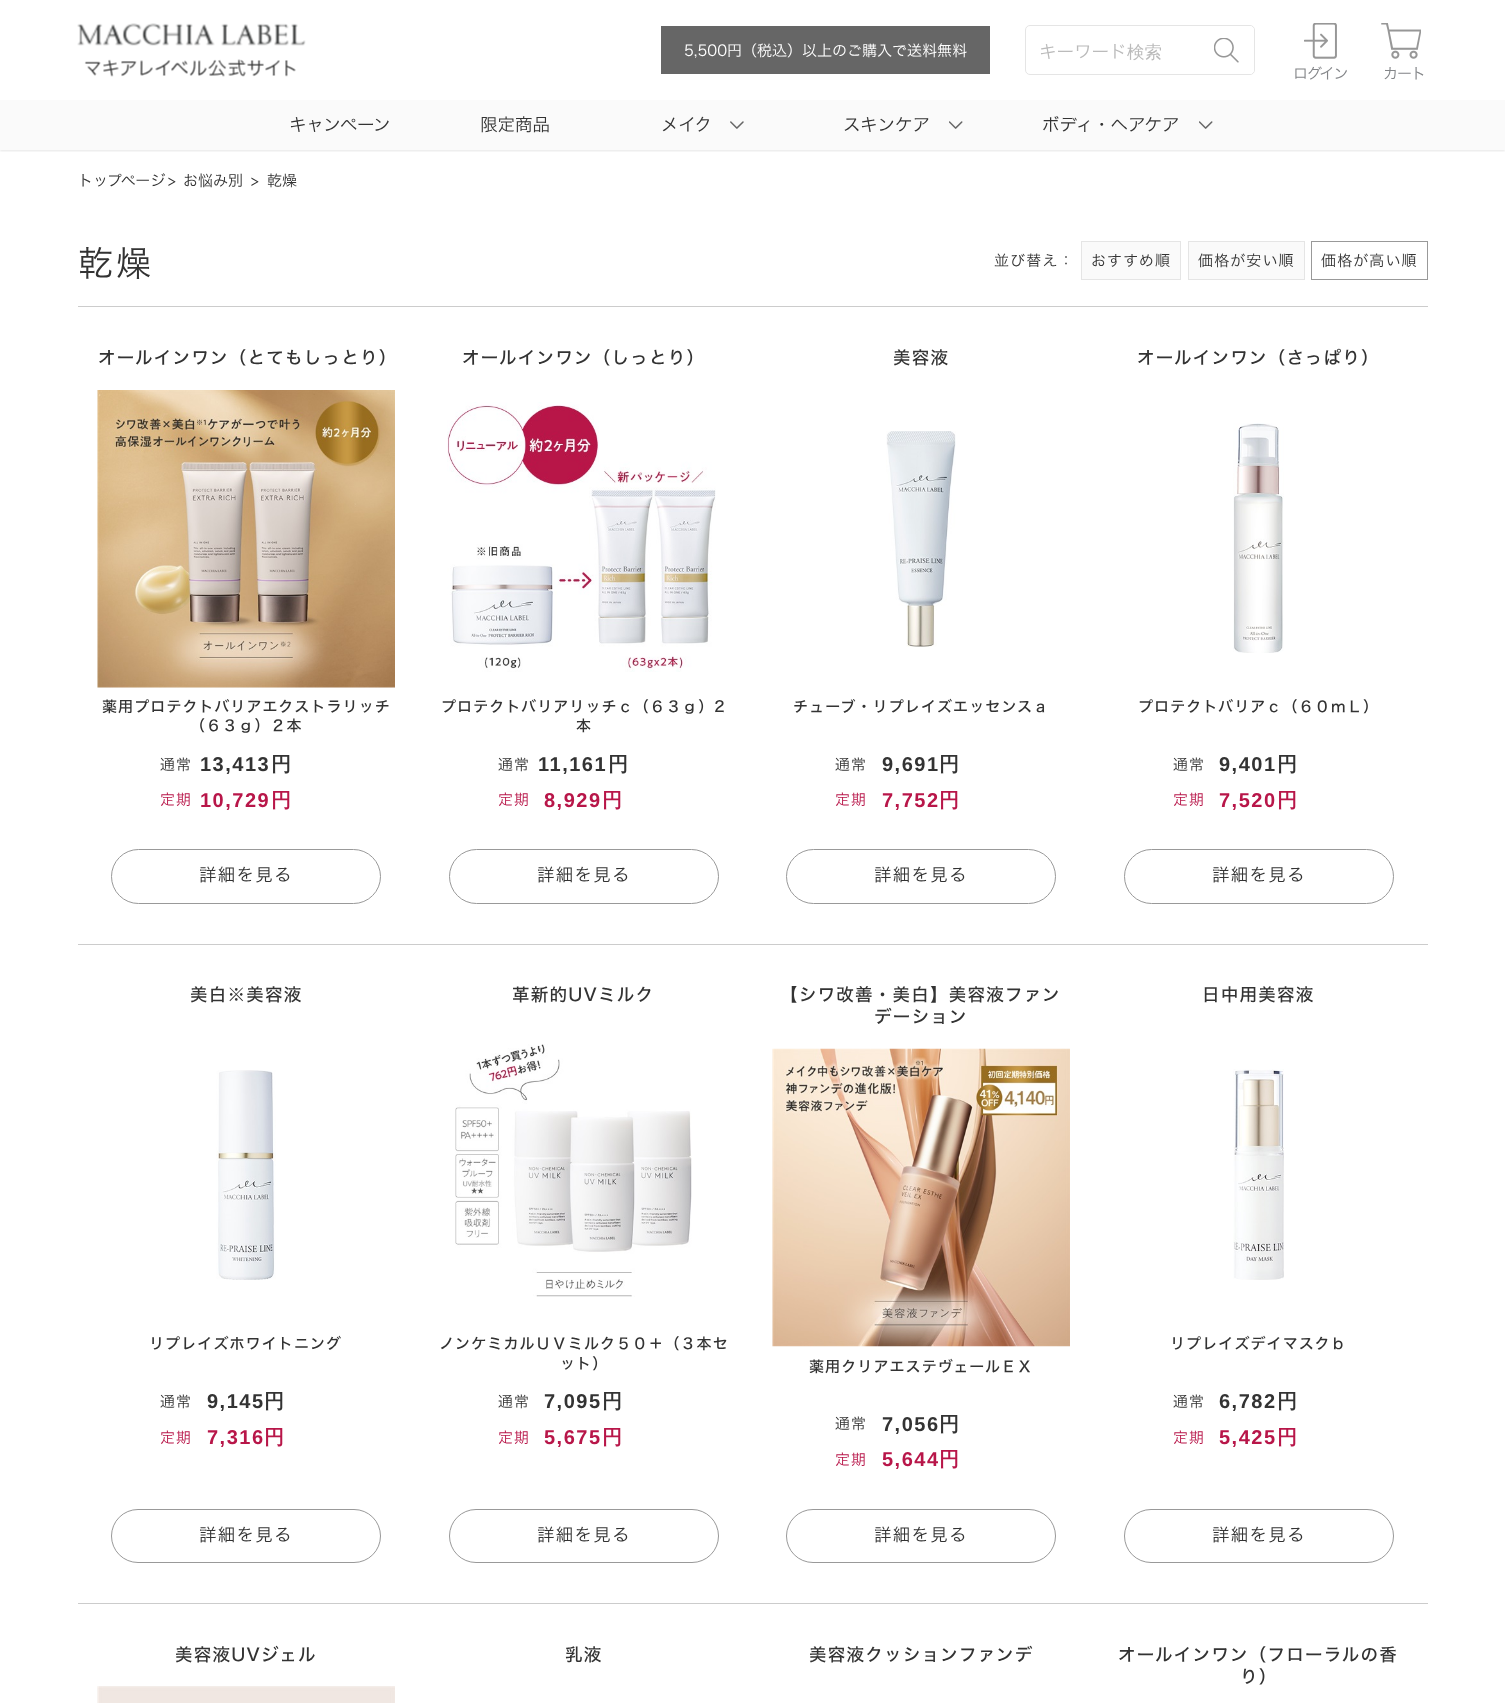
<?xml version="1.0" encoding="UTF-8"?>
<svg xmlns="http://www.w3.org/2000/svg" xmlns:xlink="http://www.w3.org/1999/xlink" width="1505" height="1703">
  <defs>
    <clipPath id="clip1"><rect x="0" y="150" width="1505" height="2" /></clipPath>
  </defs>
  <rect width="100%" height="100%" fill="#ffffff" />
  <g clip-path="url(#clip1)">
    <rect y="1" width="1505" height="150" fill="#000000" fill-opacity="0.1" filter="blur(1px)" />
  </g>
  <image x="77" y="23" width="229" height="54" xlink:href="image1.png" />
  <rect x="661" y="26" width="329" height="48" fill="#666666" />
  <rect x="1025.5" y="25.5" width="229" height="49" rx="4.5" fill="none" stroke="#e5e5e5" />
  <path d="M 1199 26 h 51 c 2 0 4 2 4 4 v 40 c 0 2 -2 4 -4 4 h -51 z" fill="#ffffff" />
  <image x="1214" y="38" width="25" height="25" xlink:href="image2.png" />
  <image x="1304" y="23" width="33" height="36" xlink:href="image3.png" />
  <image x="1381" y="23" width="40" height="36" xlink:href="image4.png" />
  <rect y="100" width="1505" height="50" fill="#fafafa" />
  <image x="730" y="121" width="14" height="8" xlink:href="image5.png" />
  <image x="949" y="121" width="14" height="8" xlink:href="image6.png" />
  <image x="1199" y="121" width="14" height="8" xlink:href="image6.png" />
  <rect x="1081.5" y="241.5" width="99" height="38" fill="#fafafa" stroke="#e5e5e5" />
  <rect x="1188.5" y="241.5" width="116" height="38" fill="#fafafa" stroke="#e5e5e5" />
  <rect x="1311.5" y="241.5" width="116" height="38" fill="none" stroke="#999999" />
  <rect x="78" y="306" width="1350" height="1" fill="#cccccc" />
  <image x="97" y="390" width="298" height="298" xlink:href="image7.png" />
  <rect x="111.5" y="849.5" width="269" height="54" rx="27" fill="none" stroke="#999999" />
  <image x="447" y="402" width="269" height="270" xlink:href="image8.png" />
  <rect x="449.5" y="849.5" width="269" height="54" rx="27" fill="none" stroke="#999999" />
  <image x="886" y="431" width="70" height="216" xlink:href="image9.png" />
  <rect x="786.5" y="849.5" width="269" height="54" rx="27" fill="none" stroke="#999999" />
  <image x="1233" y="423" width="51" height="230" xlink:href="image10.png" />
  <rect x="1124.5" y="849.5" width="269" height="54" rx="27" fill="none" stroke="#999999" />
  <rect x="78" y="944" width="1350" height="1" fill="#cccccc" />
  <image x="216" y="1070" width="60" height="210" xlink:href="image11.png" />
  <rect x="111.5" y="1509.5" width="269" height="53" rx="26.5" fill="none" stroke="#999999" />
  <image x="455" y="1044" width="237" height="253" xlink:href="image12.png" />
  <rect x="449.5" y="1509.5" width="269" height="53" rx="26.5" fill="none" stroke="#999999" />
  <image x="772" y="1048" width="298" height="299" xlink:href="image13.png" />
  <rect x="786.5" y="1509.5" width="269" height="53" rx="26.5" fill="none" stroke="#999999" />
  <image x="1233" y="1069" width="51" height="211" xlink:href="image14.png" />
  <rect x="1124.5" y="1509.5" width="269" height="53" rx="26.5" fill="none" stroke="#999999" />
  <rect x="78" y="1603" width="1350" height="1" fill="#cccccc" />
  <image x="97" y="1686" width="298" height="17" xlink:href="image15.png" />
  <text x="684" y="56" style="font-family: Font; font-size: 15px; font-weight: 300; fill: #ffffff">5,500円（税込）以上のご購入で送料無料</text>
  <text x="1039" y="58" style="font-family: Font; font-size: 17.5px; font-weight: 300; fill: #bbbbbb">キーワード</text>
  <text x="1127" y="58" style="font-family: WenQuanYi Zen Hei; font-size: 17.5px; font-weight: 500; fill: #bbbbbb">検索</text>
  <text x="1293" y="79" style="font-family: Font; font-size: 15px; font-weight: 300; letter-spacing: -1px; fill: #838588">ログイン</text>
  <text x="1383" y="79" style="font-family: Font; font-size: 15px; font-weight: 300; letter-spacing: -1px; fill: #838588">カート</text>
  <text x="289" y="131" style="font-family: Font; font-size: 17.5px; font-weight: 300; fill: #333333">キャンペーン</text>
  <text x="480" y="131" style="font-family: Font; font-size: 17.5px; font-weight: 300; fill: #333333">限定商品</text>
  <text x="661" y="131" style="font-family: Font; font-size: 17.5px; font-weight: 300; fill: #333333">メイク</text>
  <text x="843" y="131" style="font-family: Font; font-size: 17.5px; font-weight: 300; fill: #333333">スキンケア</text>
  <text x="1042" y="131" style="font-family: Font; font-size: 17.5px; font-weight: 300; fill: #333333">ボディ・ヘアケア</text>
  <text x="78" y="186" style="font-family: Font; font-size: 15px; font-weight: 300; fill: #333333">トップページ</text>
  <text x="168" y="186" style="font-family: Font; font-size: 15px; font-weight: 300; fill: #333333">&gt;</text>
  <text x="183" y="186" style="font-family: Font; font-size: 15px; font-weight: 300; fill: #333333">お悩み別</text>
  <text x="251" y="186" style="font-family: Font; font-size: 15px; font-weight: 300; fill: #333333">&gt;</text>
  <text x="267" y="186" style="font-family: Font; font-size: 15px; font-weight: 300; fill: #333333">乾燥</text>
  <text x="78" y="276" style="font-family: Font; font-size: 35px; font-weight: 300; letter-spacing: 3px; fill: #333333">乾燥</text>
  <text x="994" y="266" style="font-family: Font; font-size: 15px; font-weight: 300; letter-spacing: 1.1px; fill: #333333">並び替え：</text>
  <text x="1091" y="266" style="font-family: Font; font-size: 15px; font-weight: 300; letter-spacing: 1.1px; fill: #333333">おすすめ順</text>
  <text x="1198" y="266" style="font-family: Font; font-size: 15px; font-weight: 300; letter-spacing: 1.1px; fill: #333333">価格が安い順</text>
  <text x="1321" y="266" style="font-family: Font; font-size: 15px; font-weight: 300; letter-spacing: 1.1px; fill: #333333">価格が高い順</text>
  <text x="98" y="364" style="font-family: Font; font-size: 17.5px; font-weight: 500; letter-spacing: 1.25px; fill: #333333">オールインワン（とてもしっとり）</text>
  <text x="102" y="712" style="font-family: Font; font-size: 15px; font-weight: 500; letter-spacing: 1.1px; fill: #333333">薬用プロテクトバリアエクストラリッチ</text>
  <text x="190" y="731" style="font-family: Font; font-size: 15px; font-weight: 500; letter-spacing: 1.1px; fill: #333333">（６３ｇ）２本</text>
  <text x="160" y="770" style="font-family: Font; font-size: 15px; font-weight: 300; letter-spacing: 1.1px; fill: #333333">通常</text>
  <text x="200" y="771" style="font-family: Liberation Sans; font-size: 20px; font-weight: bold; letter-spacing: 1.5px; fill: #333333">13,413</text>
  <text x="271" y="771" style="font-family: WenQuanYi Zen Hei; font-size: 20px; font-weight: bold; letter-spacing: 1.5px; fill: #333333">円</text>
  <text x="160" y="805" style="font-family: Font; font-size: 15px; font-weight: 300; letter-spacing: 1.1px; fill: #b81649">定期</text>
  <text x="200" y="807" style="font-family: Liberation Sans; font-size: 20px; font-weight: bold; letter-spacing: 1.5px; fill: #b81649">10,729</text>
  <text x="271" y="807" style="font-family: WenQuanYi Zen Hei; font-size: 20px; font-weight: bold; letter-spacing: 1.5px; fill: #b81649">円</text>
  <text x="199" y="881" style="font-family: Font; font-size: 17.5px; font-weight: 300; letter-spacing: 1.25px; fill: #333333">詳細を見る</text>
  <text x="462" y="364" style="font-family: Font; font-size: 17.5px; font-weight: 500; letter-spacing: 1.25px; fill: #333333">オールインワン（しっとり）</text>
  <text x="441" y="712" style="font-family: Font; font-size: 15px; font-weight: 500; letter-spacing: 1.1px; fill: #333333">プロテクトバリアリッチｃ（６３ｇ）2</text>
  <text x="576" y="731" style="font-family: Font; font-size: 15px; font-weight: 500; letter-spacing: 1.1px; fill: #333333">本</text>
  <text x="498" y="770" style="font-family: Font; font-size: 15px; font-weight: 300; letter-spacing: 1.1px; fill: #333333">通常</text>
  <text x="538" y="771" style="font-family: Liberation Sans; font-size: 20px; font-weight: bold; letter-spacing: 1.5px; fill: #333333">11,161</text>
  <text x="608" y="771" style="font-family: WenQuanYi Zen Hei; font-size: 20px; font-weight: bold; letter-spacing: 1.5px; fill: #333333">円</text>
  <text x="498" y="805" style="font-family: Font; font-size: 15px; font-weight: 300; letter-spacing: 1.1px; fill: #b81649">定期</text>
  <text x="544" y="807" style="font-family: Liberation Sans; font-size: 20px; font-weight: bold; letter-spacing: 1.5px; fill: #b81649">8,929</text>
  <text x="602" y="807" style="font-family: WenQuanYi Zen Hei; font-size: 20px; font-weight: bold; letter-spacing: 1.5px; fill: #b81649">円</text>
  <text x="537" y="881" style="font-family: Font; font-size: 17.5px; font-weight: 300; letter-spacing: 1.25px; fill: #333333">詳細を見る</text>
  <text x="893" y="364" style="font-family: Font; font-size: 17.5px; font-weight: 500; letter-spacing: 1.25px; fill: #333333">美容液</text>
  <text x="793" y="712" style="font-family: Font; font-size: 15px; font-weight: 500; letter-spacing: 1.1px; fill: #333333">チューブ・リプレイズエッセンスａ</text>
  <text x="835" y="770" style="font-family: Font; font-size: 15px; font-weight: 300; letter-spacing: 1.1px; fill: #333333">通常</text>
  <text x="882" y="771" style="font-family: Liberation Sans; font-size: 20px; font-weight: bold; letter-spacing: 1.5px; fill: #333333">9,691</text>
  <text x="939" y="771" style="font-family: WenQuanYi Zen Hei; font-size: 20px; font-weight: bold; letter-spacing: 1.5px; fill: #333333">円</text>
  <text x="835" y="805" style="font-family: Font; font-size: 15px; font-weight: 300; letter-spacing: 1.1px; fill: #b81649">定期</text>
  <text x="882" y="807" style="font-family: Liberation Sans; font-size: 20px; font-weight: bold; letter-spacing: 1.5px; fill: #b81649">7,752</text>
  <text x="939" y="807" style="font-family: WenQuanYi Zen Hei; font-size: 20px; font-weight: bold; letter-spacing: 1.5px; fill: #b81649">円</text>
  <text x="874" y="881" style="font-family: Font; font-size: 17.5px; font-weight: 300; letter-spacing: 1.25px; fill: #333333">詳細を見る</text>
  <text x="1137" y="364" style="font-family: Font; font-size: 17.5px; font-weight: 500; letter-spacing: 1.25px; fill: #333333">オールインワン（さっぱり）</text>
  <text x="1138" y="712" style="font-family: Font; font-size: 15px; font-weight: 500; letter-spacing: 1.1px; fill: #333333">プロテクトバリアｃ（６０ｍＬ）</text>
  <text x="1173" y="770" style="font-family: Font; font-size: 15px; font-weight: 300; letter-spacing: 1.1px; fill: #333333">通常</text>
  <text x="1219" y="771" style="font-family: Liberation Sans; font-size: 20px; font-weight: bold; letter-spacing: 1.5px; fill: #333333">9,401</text>
  <text x="1277" y="771" style="font-family: WenQuanYi Zen Hei; font-size: 20px; font-weight: bold; letter-spacing: 1.5px; fill: #333333">円</text>
  <text x="1173" y="805" style="font-family: Font; font-size: 15px; font-weight: 300; letter-spacing: 1.1px; fill: #b81649">定期</text>
  <text x="1219" y="807" style="font-family: Liberation Sans; font-size: 20px; font-weight: bold; letter-spacing: 1.5px; fill: #b81649">7,520</text>
  <text x="1277" y="807" style="font-family: WenQuanYi Zen Hei; font-size: 20px; font-weight: bold; letter-spacing: 1.5px; fill: #b81649">円</text>
  <text x="1212" y="881" style="font-family: Font; font-size: 17.5px; font-weight: 300; letter-spacing: 1.25px; fill: #333333">詳細を見る</text>
  <text x="190" y="1001" style="font-family: Font; font-size: 17.5px; font-weight: 500; letter-spacing: 1.25px; fill: #333333">美白※美容液</text>
  <text x="149" y="1349" style="font-family: Font; font-size: 15px; font-weight: 500; letter-spacing: 1.1px; fill: #333333">リプレイズホワイトニング</text>
  <text x="160" y="1407" style="font-family: Font; font-size: 15px; font-weight: 300; letter-spacing: 1.1px; fill: #333333">通常</text>
  <text x="207" y="1408" style="font-family: Liberation Sans; font-size: 20px; font-weight: bold; letter-spacing: 1.5px; fill: #333333">9,145</text>
  <text x="264" y="1408" style="font-family: WenQuanYi Zen Hei; font-size: 20px; font-weight: bold; letter-spacing: 1.5px; fill: #333333">円</text>
  <text x="160" y="1443" style="font-family: Font; font-size: 15px; font-weight: 300; letter-spacing: 1.1px; fill: #b81649">定期</text>
  <text x="207" y="1444" style="font-family: Liberation Sans; font-size: 20px; font-weight: bold; letter-spacing: 1.5px; fill: #b81649">7,316</text>
  <text x="264" y="1444" style="font-family: WenQuanYi Zen Hei; font-size: 20px; font-weight: bold; letter-spacing: 1.5px; fill: #b81649">円</text>
  <text x="199" y="1541" style="font-family: Font; font-size: 17.5px; font-weight: 300; letter-spacing: 1.25px; fill: #333333">詳細を見る</text>
  <text x="512" y="1001" style="font-family: Font; font-size: 17.5px; font-weight: 500; letter-spacing: 1.25px; fill: #333333">革新的UVミルク</text>
  <text x="439" y="1349" style="font-family: Font; font-size: 15px; font-weight: 500; letter-spacing: 1.1px; fill: #333333">ノンケミカルＵＶミルク５０＋（３本セ</text>
  <text x="560" y="1369" style="font-family: Font; font-size: 15px; font-weight: 500; letter-spacing: 1.1px; fill: #333333">ット）</text>
  <text x="498" y="1407" style="font-family: Font; font-size: 15px; font-weight: 300; letter-spacing: 1.1px; fill: #333333">通常</text>
  <text x="544" y="1408" style="font-family: Liberation Sans; font-size: 20px; font-weight: bold; letter-spacing: 1.5px; fill: #333333">7,095</text>
  <text x="602" y="1408" style="font-family: WenQuanYi Zen Hei; font-size: 20px; font-weight: bold; letter-spacing: 1.5px; fill: #333333">円</text>
  <text x="498" y="1443" style="font-family: Font; font-size: 15px; font-weight: 300; letter-spacing: 1.1px; fill: #b81649">定期</text>
  <text x="544" y="1444" style="font-family: Liberation Sans; font-size: 20px; font-weight: bold; letter-spacing: 1.5px; fill: #b81649">5,675</text>
  <text x="602" y="1444" style="font-family: WenQuanYi Zen Hei; font-size: 20px; font-weight: bold; letter-spacing: 1.5px; fill: #b81649">円</text>
  <text x="537" y="1541" style="font-family: Font; font-size: 17.5px; font-weight: 300; letter-spacing: 1.25px; fill: #333333">詳細を見る</text>
  <text x="780" y="1001" style="font-family: Font; font-size: 17.5px; font-weight: 500; letter-spacing: 1.25px; fill: #333333">【シワ改善・美白】美容液ファン</text>
  <text x="874" y="1023" style="font-family: Font; font-size: 17.5px; font-weight: 500; letter-spacing: 1.25px; fill: #333333">デーション</text>
  <text x="809" y="1372" style="font-family: Font; font-size: 15px; font-weight: 500; letter-spacing: 1.1px; fill: #333333">薬用クリアエステヴェールＥＸ</text>
  <text x="835" y="1429" style="font-family: Font; font-size: 15px; font-weight: 300; letter-spacing: 1.1px; fill: #333333">通常</text>
  <text x="882" y="1431" style="font-family: Liberation Sans; font-size: 20px; font-weight: bold; letter-spacing: 1.5px; fill: #333333">7,056</text>
  <text x="939" y="1431" style="font-family: WenQuanYi Zen Hei; font-size: 20px; font-weight: bold; letter-spacing: 1.5px; fill: #333333">円</text>
  <text x="835" y="1465" style="font-family: Font; font-size: 15px; font-weight: 300; letter-spacing: 1.1px; fill: #b81649">定期</text>
  <text x="882" y="1466" style="font-family: Liberation Sans; font-size: 20px; font-weight: bold; letter-spacing: 1.5px; fill: #b81649">5,644</text>
  <text x="939" y="1466" style="font-family: WenQuanYi Zen Hei; font-size: 20px; font-weight: bold; letter-spacing: 1.5px; fill: #b81649">円</text>
  <text x="874" y="1541" style="font-family: Font; font-size: 17.5px; font-weight: 300; letter-spacing: 1.25px; fill: #333333">詳細を見る</text>
  <text x="1202" y="1001" style="font-family: Font; font-size: 17.5px; font-weight: 500; letter-spacing: 1.25px; fill: #333333">日中用美容液</text>
  <text x="1170" y="1349" style="font-family: Font; font-size: 15px; font-weight: 500; letter-spacing: 1.1px; fill: #333333">リプレイズデイマスクｂ</text>
  <text x="1173" y="1407" style="font-family: Font; font-size: 15px; font-weight: 300; letter-spacing: 1.1px; fill: #333333">通常</text>
  <text x="1219" y="1408" style="font-family: Liberation Sans; font-size: 20px; font-weight: bold; letter-spacing: 1.5px; fill: #333333">6,782</text>
  <text x="1277" y="1408" style="font-family: WenQuanYi Zen Hei; font-size: 20px; font-weight: bold; letter-spacing: 1.5px; fill: #333333">円</text>
  <text x="1173" y="1443" style="font-family: Font; font-size: 15px; font-weight: 300; letter-spacing: 1.1px; fill: #b81649">定期</text>
  <text x="1219" y="1444" style="font-family: Liberation Sans; font-size: 20px; font-weight: bold; letter-spacing: 1.5px; fill: #b81649">5,425</text>
  <text x="1277" y="1444" style="font-family: WenQuanYi Zen Hei; font-size: 20px; font-weight: bold; letter-spacing: 1.5px; fill: #b81649">円</text>
  <text x="1212" y="1541" style="font-family: Font; font-size: 17.5px; font-weight: 300; letter-spacing: 1.25px; fill: #333333">詳細を見る</text>
  <text x="175" y="1661" style="font-family: Font; font-size: 17.5px; font-weight: 500; letter-spacing: 1.25px; fill: #333333">美容液UVジェル</text>
  <text x="565" y="1661" style="font-family: Font; font-size: 17.5px; font-weight: 500; letter-spacing: 1.25px; fill: #333333">乳液</text>
  <text x="809" y="1661" style="font-family: Font; font-size: 17.5px; font-weight: 500; letter-spacing: 1.25px; fill: #333333">美容液クッションファンデ</text>
  <text x="1118" y="1661" style="font-family: Font; font-size: 17.5px; font-weight: 500; letter-spacing: 1.25px; fill: #333333">オールインワン（フローラルの香</text>
  <text x="1240" y="1683" style="font-family: Font; font-size: 17.5px; font-weight: 500; letter-spacing: 1.25px; fill: #333333">り）</text>
</svg>
